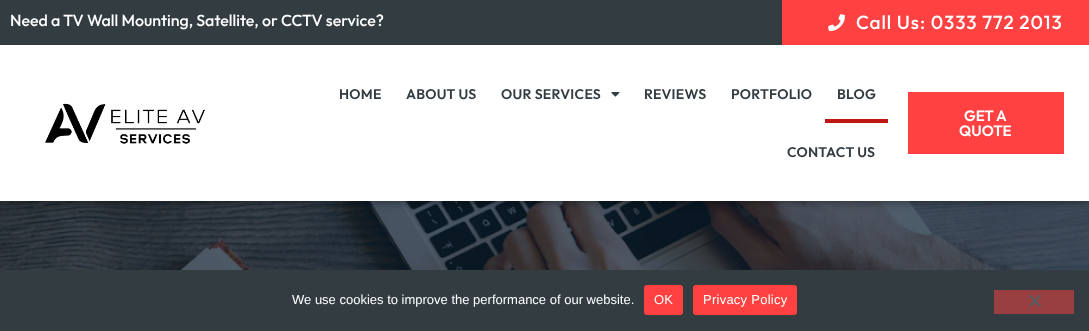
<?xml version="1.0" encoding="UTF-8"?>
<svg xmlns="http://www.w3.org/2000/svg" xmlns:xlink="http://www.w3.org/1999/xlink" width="1089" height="331">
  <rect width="100%" height="100%" fill="#ffffff" />
  <image x="0" y="201" width="1089" height="69" xlink:href="image4.png" />
  <rect y="45" width="1089" height="156" fill="#000000" fill-opacity="0.5" filter="blur(5px)" />
  <rect width="782" height="45" fill="#323c41" />
  <rect x="782" width="307" height="45" fill="#ff4141" />
  <image x="828" y="14" width="17" height="18" xlink:href="image1.png" />
  <rect y="45" width="1089" height="156" fill="#ffffff" />
  <image x="45" y="103" width="160" height="41" xlink:href="image2.png" />
  <image x="611" y="92" width="9" height="5" xlink:href="image3.png" />
  <rect x="825" y="119" width="63" height="4" fill="#c11616" />
  <rect x="908" y="92" width="156" height="62" fill="#ff4141" />
  <rect y="270" width="1089" height="61" fill="#323c41" />
  <rect x="644" y="285" width="39" height="30" rx="3" fill="#ff4141" />
  <rect x="693" y="285" width="104" height="30" rx="3" fill="#ff4141" />
  <rect x="994" y="290" width="80" height="24" fill="#993f41" />
  <path d="M 1039.5 294.5 l 1.5 1.5 l -10.5 11 l -1.5 -1.5 z" fill="#595e61" />
  <path d="M 1029 296 l 1.5 -1.5 l 10.5 11 l -1.5 1.5 z" fill="#595e61" />
  <text x="10" y="26" style="font-family: Outfit; font-size: 16px; font-weight: 500; fill: #ffffff">Need a TV Wall Mounting, Satellite, or CCTV service?</text>
  <text x="856" y="29" style="font-family: Outfit; font-size: 19px; font-weight: 500; letter-spacing: 0.9px; fill: #ffffff">Call Us: 0333 772 2013</text>
  <text x="339" y="99" style="font-family: Outfit; font-size: 14px; font-weight: 600; letter-spacing: 0.25px; fill: #323c41">HOME</text>
  <text x="406" y="99" style="font-family: Outfit; font-size: 14px; font-weight: 600; letter-spacing: 0.25px; fill: #323c41">ABOUT US</text>
  <text x="501" y="99" style="font-family: Outfit; font-size: 14px; font-weight: 600; letter-spacing: 0.25px; fill: #323c41">OUR SERVICES</text>
  <text x="644" y="99" style="font-family: Outfit; font-size: 14px; font-weight: 600; letter-spacing: 0.25px; fill: #323c41">REVIEWS</text>
  <text x="731" y="99" style="font-family: Outfit; font-size: 14px; font-weight: 600; letter-spacing: 0.25px; fill: #323c41">PORTFOLIO</text>
  <text x="837" y="99" style="font-family: Outfit; font-size: 14px; font-weight: 600; letter-spacing: 0.25px; fill: #323c41">BLOG</text>
  <text x="787" y="157" style="font-family: Outfit; font-size: 14px; font-weight: 600; letter-spacing: 0.25px; fill: #323c41">CONTACT US</text>
  <text x="964" y="121" style="font-family: Outfit; font-size: 15px; font-weight: 600; fill: #ffffff">GET A</text>
  <text x="959" y="136" style="font-family: Outfit; font-size: 15px; font-weight: 600; fill: #ffffff">QUOTE</text>
  <text x="292" y="304" style="font-family: Liberation Sans; font-size: 13px; fill: #ffffff">We use cookies to improve the performance of our website.</text>
  <text x="654" y="304" style="font-family: Liberation Sans; font-size: 13px; letter-spacing: 0.25px; fill: #ffffff">OK</text>
  <text x="703" y="304" style="font-family: Liberation Sans; font-size: 13px; letter-spacing: 0.25px; fill: #ffffff">Privacy Policy</text>
</svg>
